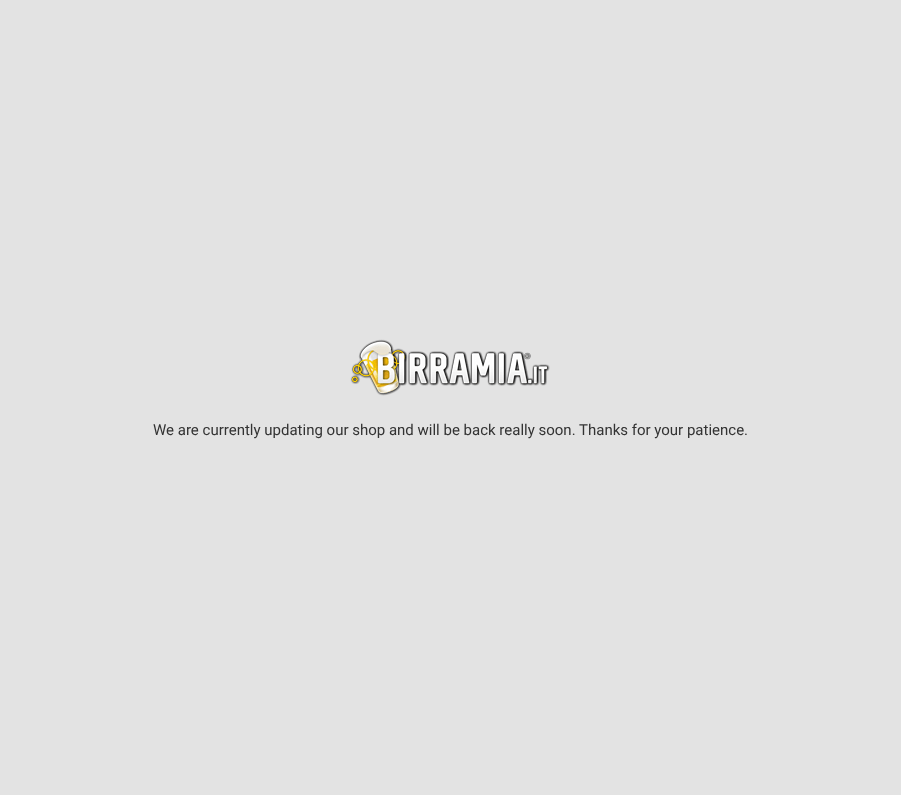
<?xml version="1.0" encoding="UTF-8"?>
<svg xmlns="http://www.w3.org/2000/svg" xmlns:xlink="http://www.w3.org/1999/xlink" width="901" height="795">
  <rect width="100%" height="100%" fill="#e3e3e3" />
  <image x="350" y="339" width="200" height="57" xlink:href="image1.png" />
  <text x="153" y="435" style="font-family: Roboto; font-size: 15px; fill: #333333">We are currently updating our shop and will be back really soon. Thanks for your patience.</text>
</svg>
